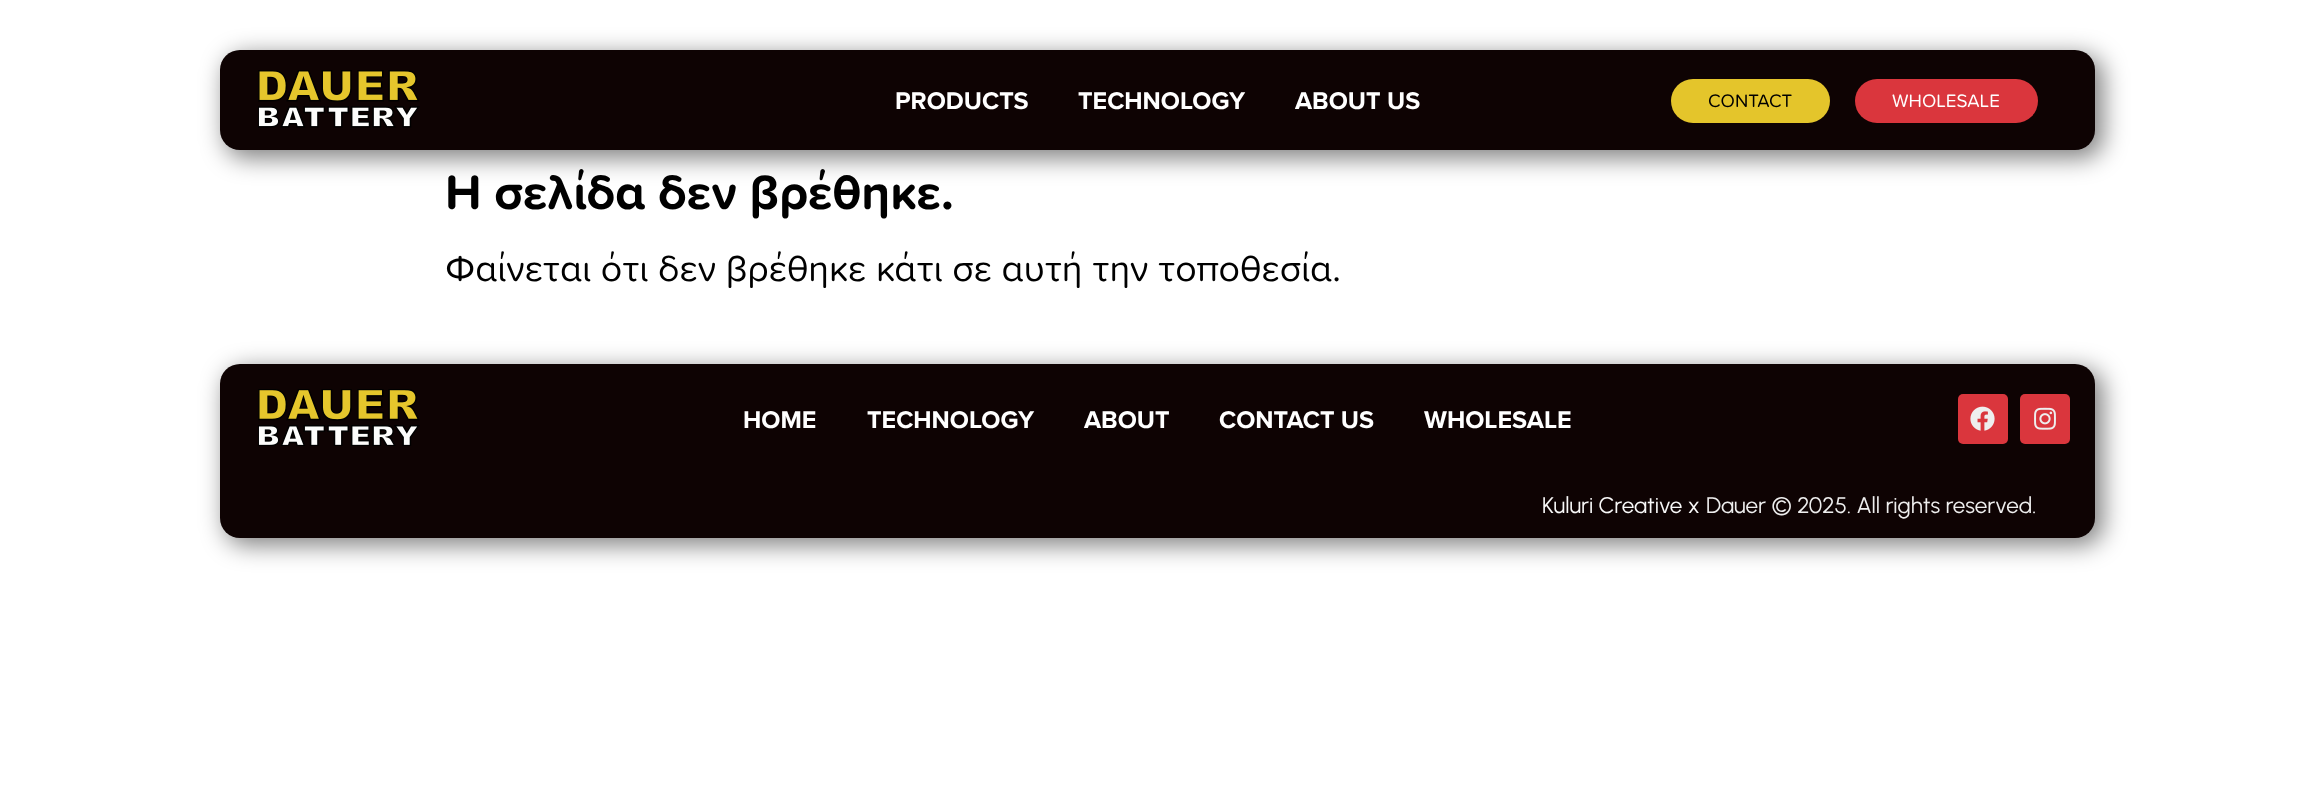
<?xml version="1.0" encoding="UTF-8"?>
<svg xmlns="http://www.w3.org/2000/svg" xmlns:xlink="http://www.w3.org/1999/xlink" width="2314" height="798">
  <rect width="100%" height="100%" fill="#ffffff" />
  <rect x="225" y="55" width="1878" height="103" rx="21" fill="#000000" fill-opacity="0.5" filter="blur(12.5px)" />
  <rect x="220" y="50" width="1875" height="100" rx="20" fill="#0e0303" />
  <image x="258" y="70" width="162" height="58" xlink:href="image1.png" />
  <rect x="1671" y="79" width="159" height="44" rx="22" fill="#e4c52b" />
  <rect x="1855" y="79" width="183" height="44" rx="22" fill="#da363d" />
  <rect x="225" y="369" width="1878" height="176" rx="21" fill="#000000" fill-opacity="0.5" filter="blur(12.5px)" />
  <rect x="220" y="364" width="1875" height="174" rx="20" fill="#0e0303" />
  <image x="258" y="389" width="162" height="57" xlink:href="image2.png" />
  <rect x="1958" y="394" width="50" height="50" rx="5" fill="#da363d" />
  <image x="1970" y="406" width="25" height="25" xlink:href="image3.png" />
  <rect x="2020" y="394" width="50" height="50" rx="5" fill="#da363d" />
  <image x="2034" y="407" width="22" height="23" xlink:href="image4.png" />
  <text x="895" y="109" style="font-family: Proxima Nova; font-size: 25px; font-weight: bold; fill: #ffffff">PRODUCTS</text>
  <text x="1078" y="109" style="font-family: Proxima Nova; font-size: 25px; font-weight: bold; fill: #ffffff">TECHNOLOGY</text>
  <text x="1295" y="109" style="font-family: Proxima Nova; font-size: 25px; font-weight: bold; fill: #ffffff">ABOUT US</text>
  <text x="1708" y="107" style="font-family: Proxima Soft; font-size: 18.75px; fill: #000000">CONTACT</text>
  <text x="1892" y="107" style="font-family: Proxima Soft; font-size: 18.75px; fill: #ffffff">WHOLESALE</text>
  <text x="445" y="209" style="font-family: Proxima Soft; font-size: 50px; font-weight: bold; fill: #000000">Η σελίδα δεν βρέθηκε.</text>
  <text x="445" y="281" style="font-family: Proxima Soft; font-size: 37.5px; fill: #000000">Φαίνεται ότι δεν βρέθηκε κάτι σε αυτή την τοποθεσία.</text>
  <text x="743" y="428" style="font-family: Proxima Nova; font-size: 25px; font-weight: bold; fill: #ffffff">HOME</text>
  <text x="867" y="428" style="font-family: Proxima Nova; font-size: 25px; font-weight: bold; fill: #ffffff">TECHNOLOGY</text>
  <text x="1084" y="428" style="font-family: Proxima Nova; font-size: 25px; font-weight: bold; fill: #ffffff">ABOUT</text>
  <text x="1219" y="428" style="font-family: Proxima Nova; font-size: 25px; font-weight: bold; fill: #ffffff">CONTACT US</text>
  <text x="1424" y="428" style="font-family: Proxima Nova; font-size: 25px; font-weight: bold; fill: #ffffff">WHOLESALE</text>
  <text x="1542" y="513" style="font-family: Urbanist; font-size: 22.5px; fill: #f8f8f8">Kuluri Creative x</text>
  <text x="1706" y="513" style="font-family: Urbanist; font-size: 22.5px; fill: #eeeeee">Dauer © 2025. All rights reserved.</text>
</svg>
